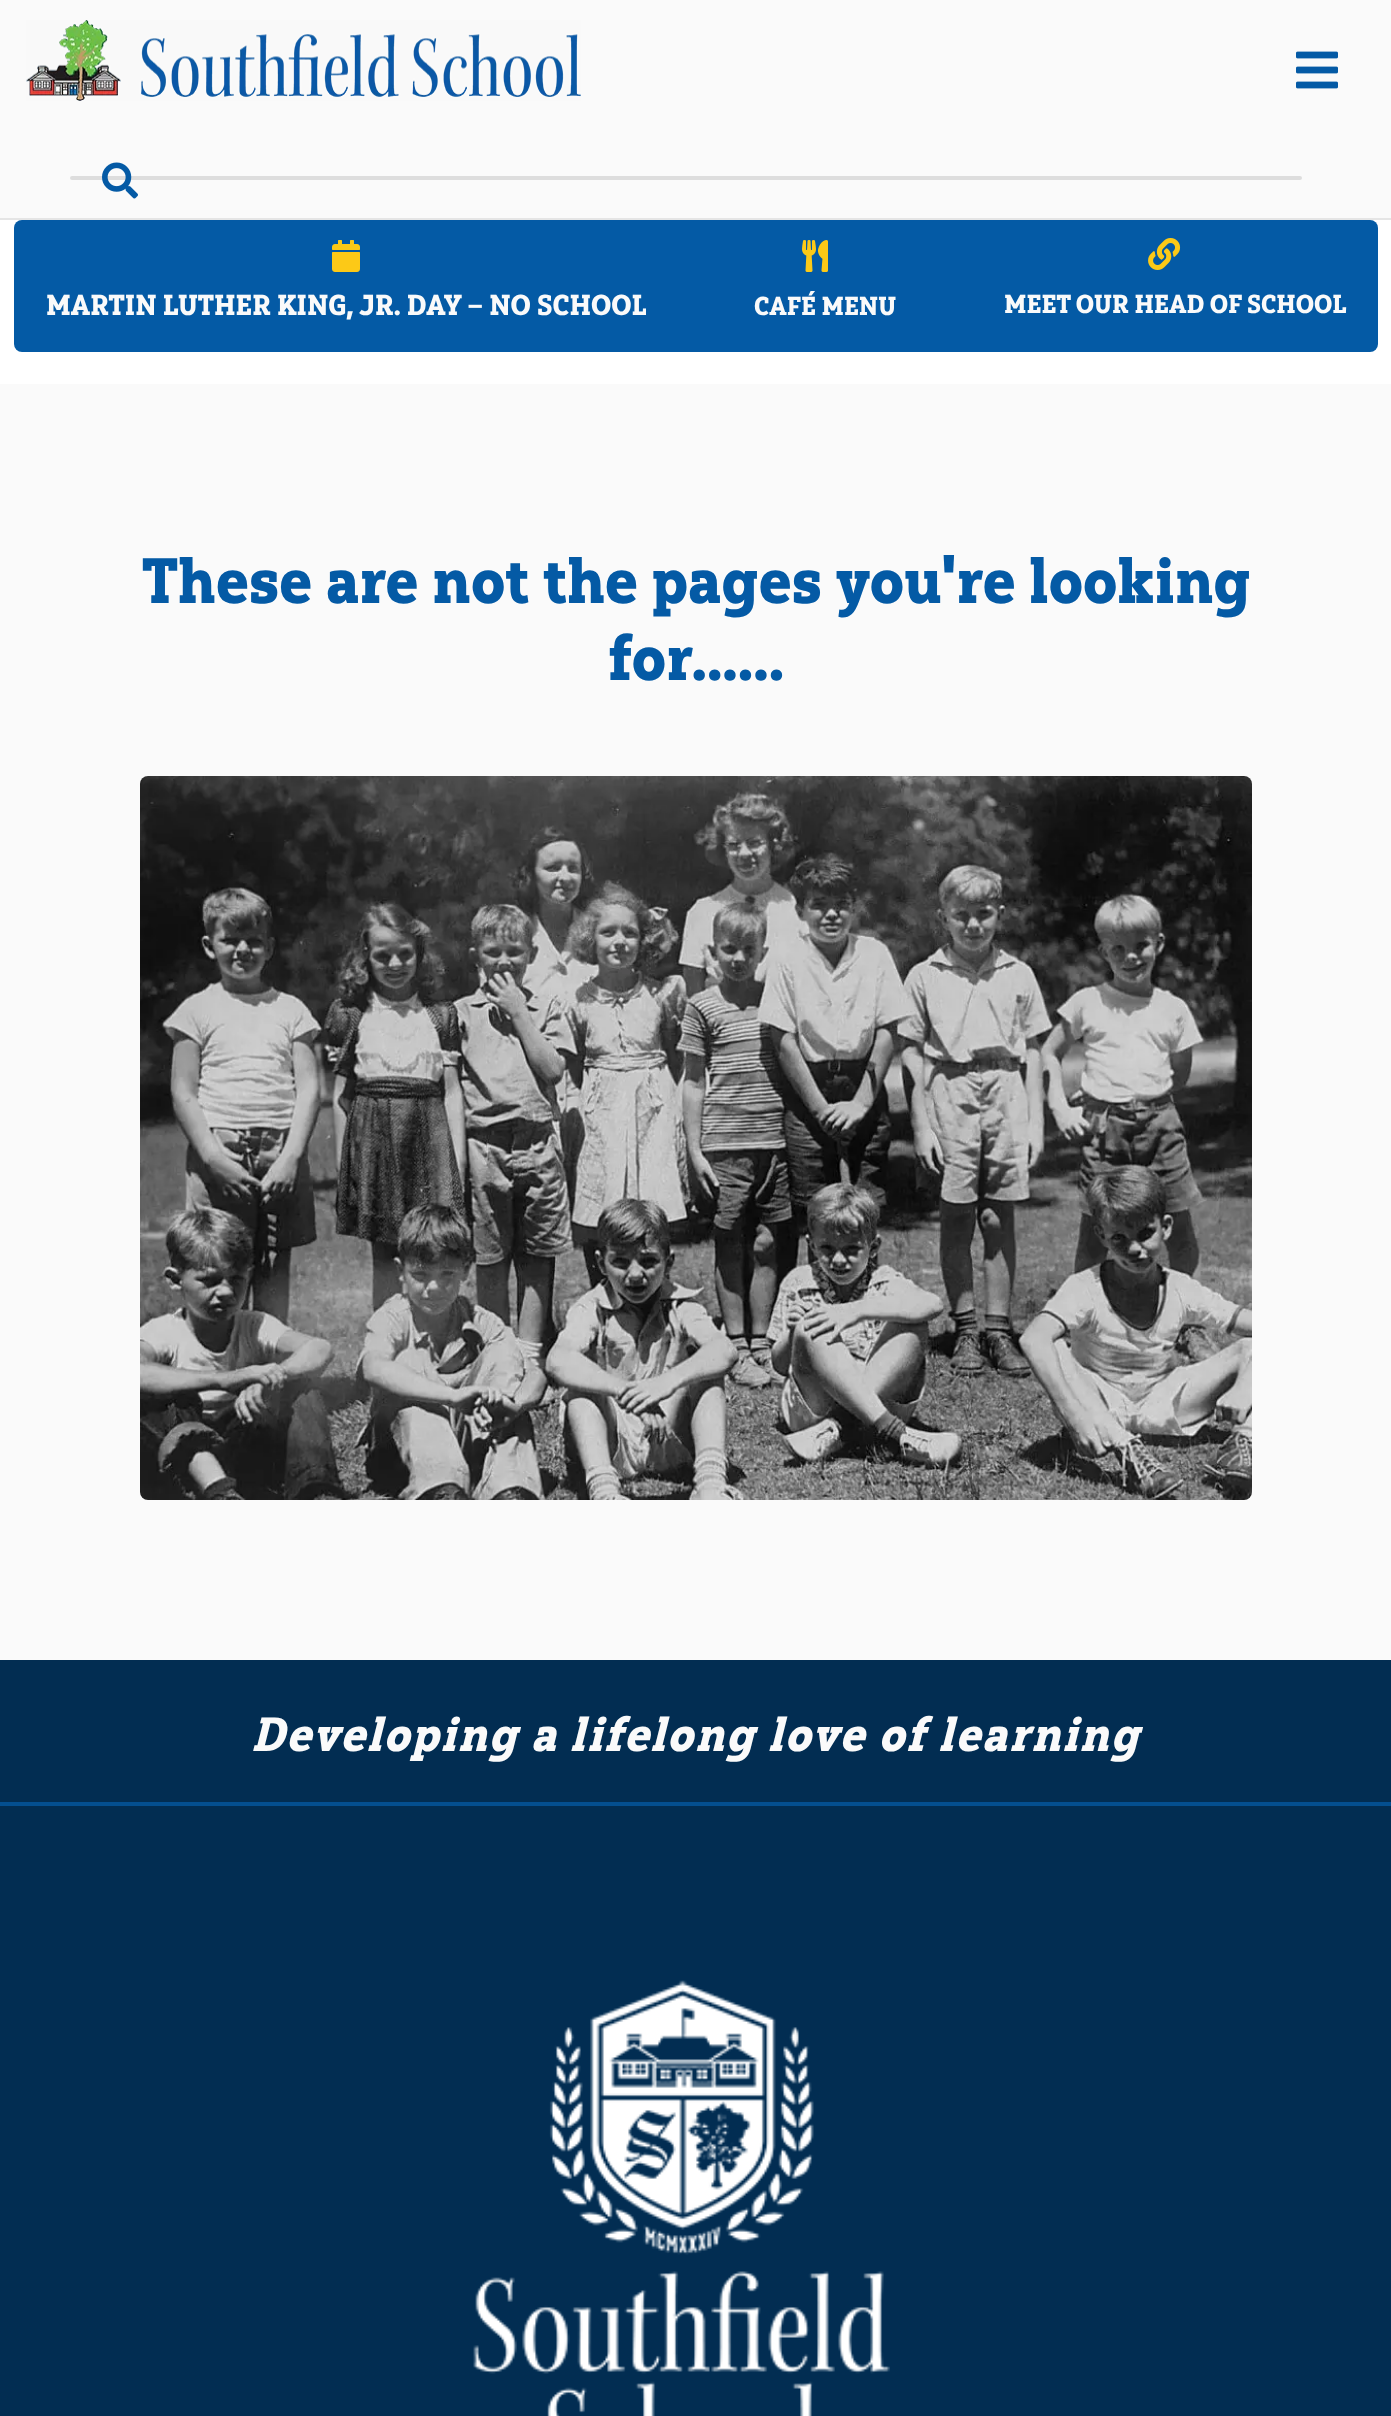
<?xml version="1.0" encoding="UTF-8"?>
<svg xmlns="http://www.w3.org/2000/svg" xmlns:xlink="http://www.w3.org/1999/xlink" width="1391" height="2416">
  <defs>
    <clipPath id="clip1"><rect x="46" y="278" width="600" height="44" /></clipPath>
  </defs>
  <rect width="100%" height="100%" fill="#ffffff" />
  <rect width="1391" height="218" fill="#fafafa" />
  <rect y="218" width="1391" height="2" fill="#e5e5e5" />
  <rect x="70" y="176" width="1232" height="4" rx="2" fill="#dddddd" />
  <image x="102" y="162" width="36" height="37" xlink:href="image1.png" />
  <image x="26" y="20" width="555" height="81" xlink:href="image2.png" />
  <image x="1296" y="51" width="42" height="38" xlink:href="image3.png" />
  <rect x="14" y="220" width="1364" height="132" rx="8" fill="#045aa5" />
  <image x="332" y="240" width="28" height="32" xlink:href="image4.png" />
  <image x="802" y="240" width="26" height="32" xlink:href="image5.png" />
  <image x="1148" y="238" width="33" height="32" xlink:href="image6.png" />
  <rect y="384" width="1391" height="1276" fill="#fafafa" />
  <image x="140" y="776" width="1112" height="724" xlink:href="image7.png" />
  <rect y="1660" width="1391" height="756" fill="#022d52" />
  <rect y="1802" width="1391" height="4" fill="#044f90" />
  <image x="473" y="1980" width="417" height="436" xlink:href="image8.png" />
  <g clip-path="url(#clip1)">
    <text x="46" y="315" style="font-family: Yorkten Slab; font-size: 28.8px; font-weight: 900; fill: #fafafa">MARTIN LUTHER KING, JR. DAY – NO SCHOOL</text>
  </g>
  <text x="754" y="315" style="font-family: Yorkten Slab; font-size: 26px; font-weight: 900; fill: #fafafa">CAFÉ MENU</text>
  <text x="1004" y="313" style="font-family: Yorkten Slab; font-size: 26px; font-weight: 900; fill: #fafafa">MEET OUR HEAD OF SCHOOL</text>
  <text x="142" y="603" style="font-family: Yorkten Slab; font-size: 64px; font-weight: 900; fill: #045aa5">These are not the pages you're looking</text>
  <text x="608" y="680" style="font-family: Yorkten Slab; font-size: 64px; font-weight: 900; fill: #045aa5">for......</text>
  <text x="251" y="1751" style="font-family: Yorkten Slab; font-size: 48px; font-weight: 900; font-style: italic; letter-spacing: 2px; fill: #fafafa">Developing a lifelong love of learning</text>
</svg>
